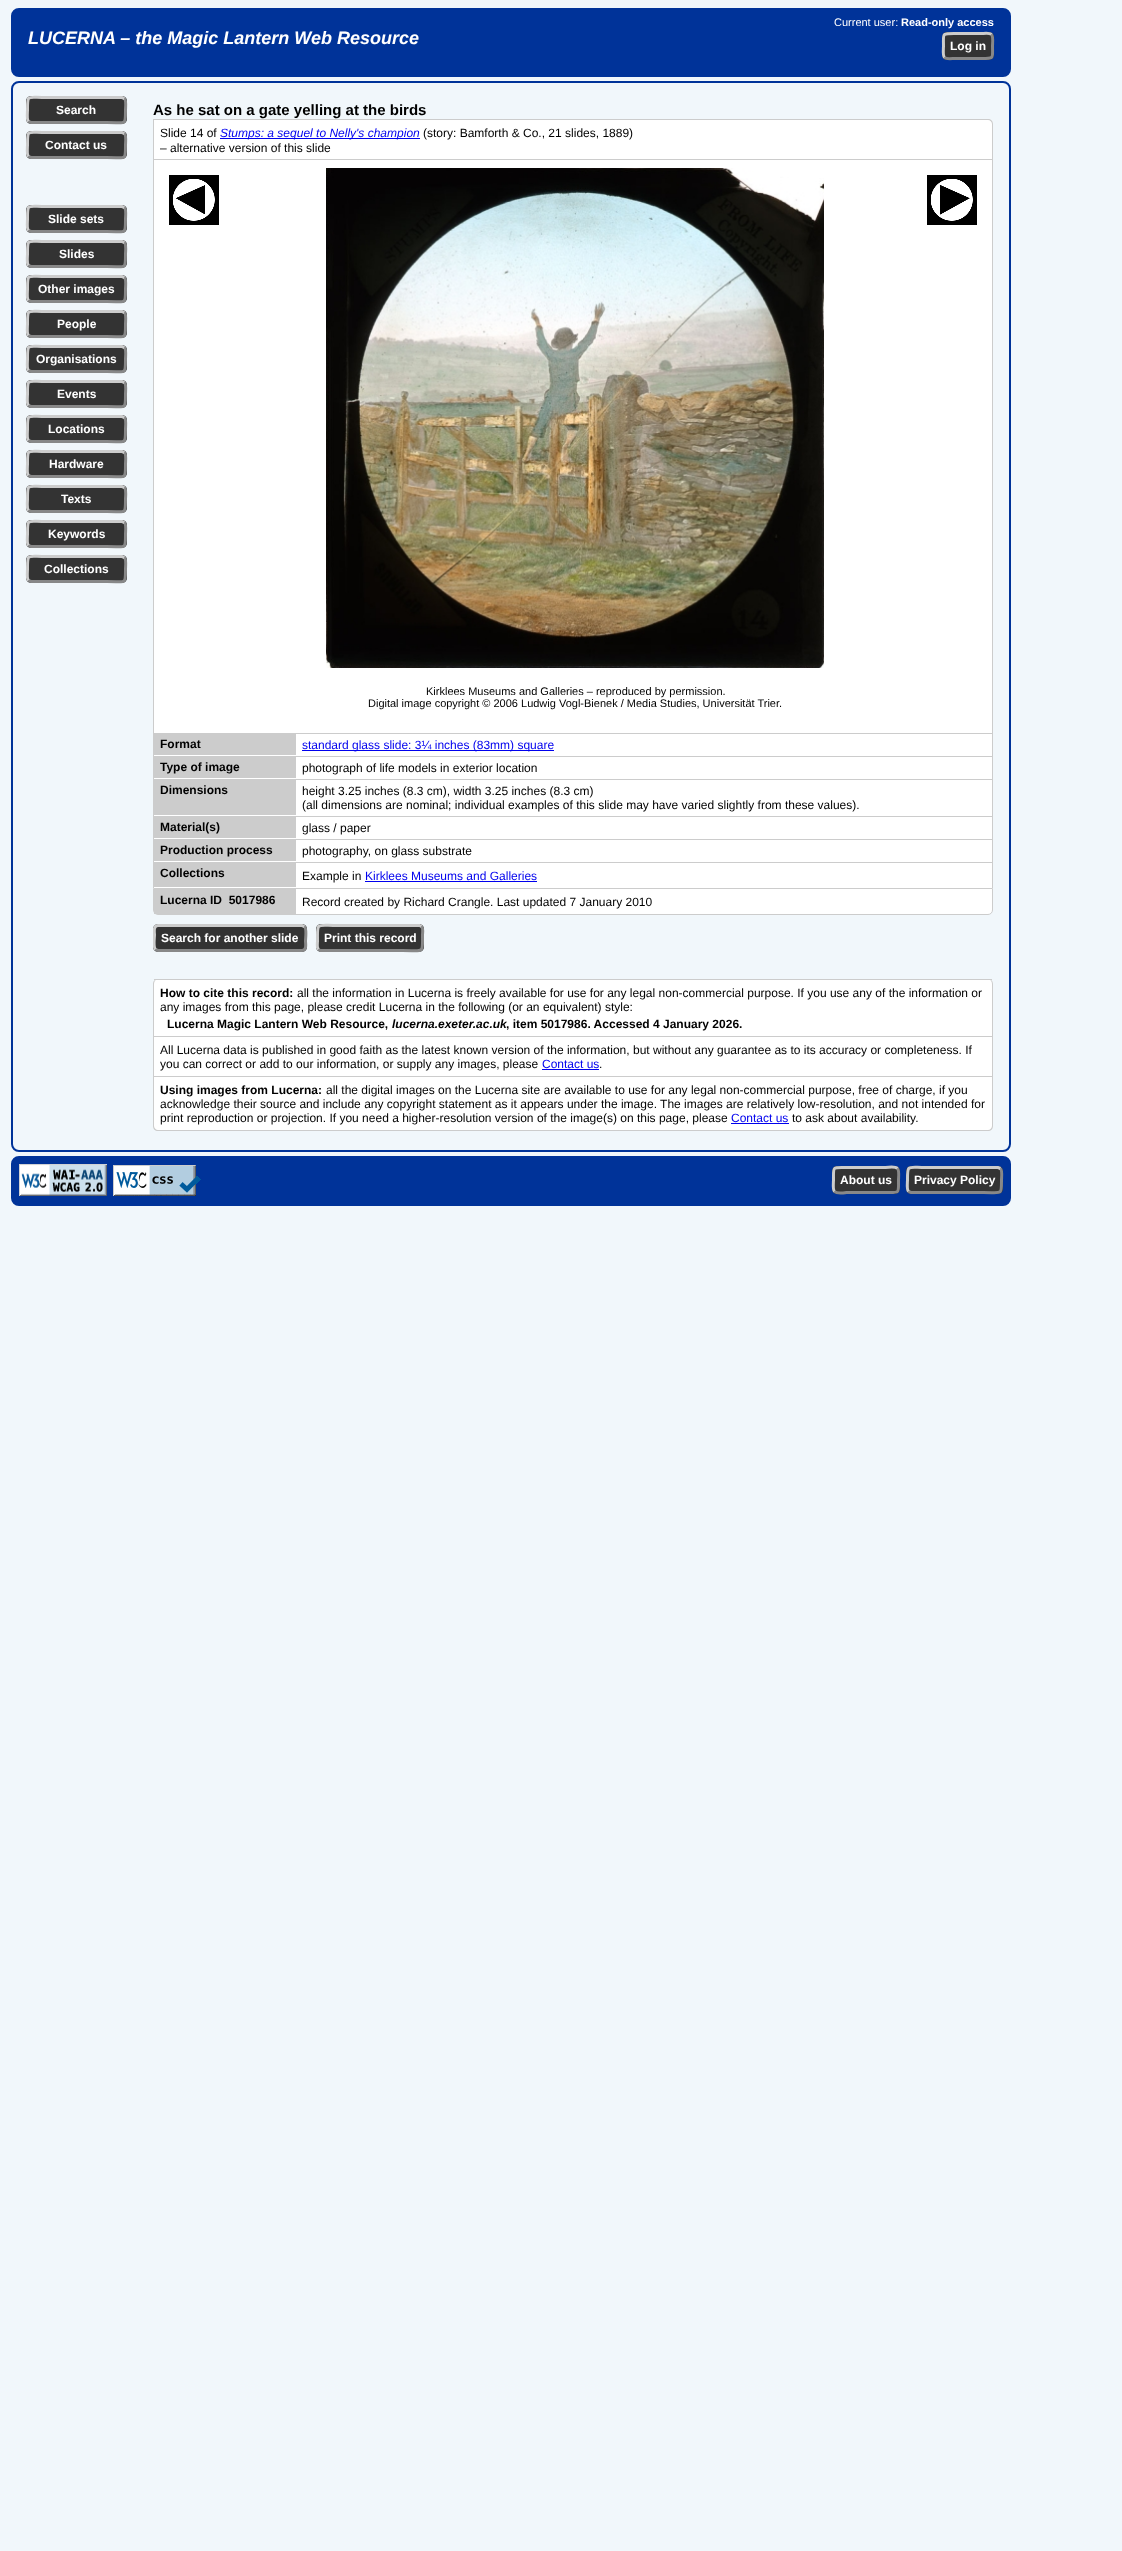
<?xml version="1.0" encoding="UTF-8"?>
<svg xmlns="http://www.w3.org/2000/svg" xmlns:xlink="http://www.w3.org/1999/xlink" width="1122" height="2551">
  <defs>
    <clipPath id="clip1"><rect x="153" y="915" width="844" height="50" /></clipPath>
  </defs>
  <rect width="100%" height="100%" fill="#f1f7fb" />
  <rect x="12" y="9" width="998" height="67" rx="7" fill="#003399" stroke="#003399" stroke-width="2" />
  <rect x="942" y="32" width="52" height="28" rx="5" fill="#333333" />
  <path d="M 991.5 34.5 c 2 2 1 9 1 11.5 c 0 12.5 2 12.5 -10.5 12.5 h -28 c -1.5 0 -7.5 1 -9.5 -1" fill="none" stroke="#888888" stroke-width="3" />
  <path d="M 944.5 57.5 c -2 -2 -1 -9 -1 -11.5 c 0 -12.5 -2 -12.5 10.5 -12.5 h 28 c 1.5 0 7.5 -1 9.5 1" fill="none" stroke="#cccccc" stroke-width="3" />
  <rect x="12" y="82" width="998" height="1069" rx="7" fill="none" stroke="#003399" stroke-width="2" />
  <rect x="26" y="96" width="101" height="28" rx="5" fill="#333333" />
  <path d="M 124.5 98.5 c 2 2 1 9 1 11.5 c 0 16.5 0.5 12.5 -18.5 12.5 h -76 l -2.5 -1" fill="none" stroke="#888888" stroke-width="3" />
  <path d="M 28.5 121.5 c -2 -2 -1 -9 -1 -11.5 c 0 -16.5 -0.5 -12.5 18.5 -12.5 h 76 l 2.5 1" fill="none" stroke="#cccccc" stroke-width="3" />
  <rect x="26" y="131" width="101" height="28" rx="5" fill="#333333" />
  <path d="M 124.5 133.5 c 2 2 1 9 1 11.5 c 0 16.5 0.5 12.5 -18.5 12.5 h -76 l -2.5 -1" fill="none" stroke="#888888" stroke-width="3" />
  <path d="M 28.5 156.5 c -2 -2 -1 -9 -1 -11.5 c 0 -16.5 -0.5 -12.5 18.5 -12.5 h 76 l 2.5 1" fill="none" stroke="#cccccc" stroke-width="3" />
  <rect x="26" y="205" width="101" height="28" rx="5" fill="#333333" />
  <path d="M 124.5 207.5 c 2 2 1 9 1 11.5 c 0 16.5 0.5 12.5 -18.5 12.5 h -76 l -2.5 -1" fill="none" stroke="#888888" stroke-width="3" />
  <path d="M 28.5 230.5 c -2 -2 -1 -9 -1 -11.5 c 0 -16.5 -0.5 -12.5 18.5 -12.5 h 76 l 2.5 1" fill="none" stroke="#cccccc" stroke-width="3" />
  <rect x="26" y="240" width="101" height="28" rx="5" fill="#333333" />
  <path d="M 124.5 242.5 c 2 2 1 9 1 11.5 c 0 16.5 0.5 12.5 -18.5 12.5 h -76 l -2.5 -1" fill="none" stroke="#888888" stroke-width="3" />
  <path d="M 28.5 265.5 c -2 -2 -1 -9 -1 -11.5 c 0 -16.5 -0.5 -12.5 18.5 -12.5 h 76 l 2.5 1" fill="none" stroke="#cccccc" stroke-width="3" />
  <rect x="26" y="275" width="101" height="28" rx="5" fill="#333333" />
  <path d="M 124.5 277.5 c 2 2 1 9 1 11.5 c 0 16.5 0.5 12.5 -18.5 12.5 h -76 l -2.5 -1" fill="none" stroke="#888888" stroke-width="3" />
  <path d="M 28.5 300.5 c -2 -2 -1 -9 -1 -11.5 c 0 -16.5 -0.5 -12.5 18.5 -12.5 h 76 l 2.5 1" fill="none" stroke="#cccccc" stroke-width="3" />
  <rect x="26" y="310" width="101" height="28" rx="5" fill="#333333" />
  <path d="M 124.5 312.5 c 2 2 1 9 1 11.5 c 0 16.5 0.5 12.5 -18.5 12.5 h -76 l -2.5 -1" fill="none" stroke="#888888" stroke-width="3" />
  <path d="M 28.5 335.5 c -2 -2 -1 -9 -1 -11.5 c 0 -16.5 -0.5 -12.5 18.5 -12.5 h 76 l 2.5 1" fill="none" stroke="#cccccc" stroke-width="3" />
  <rect x="26" y="345" width="101" height="28" rx="5" fill="#333333" />
  <path d="M 124.5 347.5 c 2 2 1 9 1 11.5 c 0 16.5 0.5 12.5 -18.5 12.5 h -76 l -2.5 -1" fill="none" stroke="#888888" stroke-width="3" />
  <path d="M 28.5 370.5 c -2 -2 -1 -9 -1 -11.5 c 0 -16.5 -0.5 -12.5 18.5 -12.5 h 76 l 2.5 1" fill="none" stroke="#cccccc" stroke-width="3" />
  <rect x="26" y="380" width="101" height="28" rx="5" fill="#333333" />
  <path d="M 124.5 382.5 c 2 2 1 9 1 11.5 c 0 16.5 0.5 12.5 -18.5 12.5 h -76 l -2.5 -1" fill="none" stroke="#888888" stroke-width="3" />
  <path d="M 28.5 405.5 c -2 -2 -1 -9 -1 -11.5 c 0 -16.5 -0.5 -12.5 18.5 -12.5 h 76 l 2.5 1" fill="none" stroke="#cccccc" stroke-width="3" />
  <rect x="26" y="415" width="101" height="28" rx="5" fill="#333333" />
  <path d="M 124.5 417.5 c 2 2 1 9 1 11.5 c 0 16.5 0.5 12.5 -18.5 12.5 h -76 l -2.5 -1" fill="none" stroke="#888888" stroke-width="3" />
  <path d="M 28.5 440.5 c -2 -2 -1 -9 -1 -11.5 c 0 -16.5 -0.5 -12.5 18.5 -12.5 h 76 l 2.5 1" fill="none" stroke="#cccccc" stroke-width="3" />
  <rect x="26" y="450" width="101" height="28" rx="5" fill="#333333" />
  <path d="M 124.5 452.5 c 2 2 1 9 1 11.5 c 0 16.5 0.5 12.5 -18.5 12.5 h -76 l -2.5 -1" fill="none" stroke="#888888" stroke-width="3" />
  <path d="M 28.5 475.5 c -2 -2 -1 -9 -1 -11.5 c 0 -16.5 -0.5 -12.5 18.5 -12.5 h 76 l 2.5 1" fill="none" stroke="#cccccc" stroke-width="3" />
  <rect x="26" y="485" width="101" height="28" rx="5" fill="#333333" />
  <path d="M 124.5 487.5 c 2 2 1 9 1 11.5 c 0 16.5 0.5 12.5 -18.5 12.5 h -76 l -2.5 -1" fill="none" stroke="#888888" stroke-width="3" />
  <path d="M 28.5 510.5 c -2 -2 -1 -9 -1 -11.5 c 0 -16.5 -0.5 -12.5 18.5 -12.5 h 76 l 2.5 1" fill="none" stroke="#cccccc" stroke-width="3" />
  <rect x="26" y="520" width="101" height="28" rx="5" fill="#333333" />
  <path d="M 124.5 522.5 c 2 2 1 9 1 11.5 c 0 16.5 0.5 12.5 -18.5 12.5 h -76 l -2.5 -1" fill="none" stroke="#888888" stroke-width="3" />
  <path d="M 28.5 545.5 c -2 -2 -1 -9 -1 -11.5 c 0 -16.5 -0.5 -12.5 18.5 -12.5 h 76 l 2.5 1" fill="none" stroke="#cccccc" stroke-width="3" />
  <rect x="26" y="555" width="101" height="28" rx="5" fill="#333333" />
  <path d="M 124.5 557.5 c 2 2 1 9 1 11.5 c 0 16.5 0.5 12.5 -18.5 12.5 h -76 l -2.5 -1" fill="none" stroke="#888888" stroke-width="3" />
  <path d="M 28.5 580.5 c -2 -2 -1 -9 -1 -11.5 c 0 -16.5 -0.5 -12.5 18.5 -12.5 h 76 l 2.5 1" fill="none" stroke="#cccccc" stroke-width="3" />
  <path d="M 153 119 h 835 c 3 0 5 2 5 5 v 35 h -840 z" fill="#ffffff" />
  <path d="M 153 119 h 835 c 3 0 5 2 5 5 v 35 h -840 z m 1 1 h 834 c 2 0 4 2 4 4 v 35 h -838 z" fill="#cccccc" fill-rule="evenodd" />
  <rect x="220" y="138" width="200" height="1" fill="#0000ee" />
  <rect x="154" y="160" width="838" height="573" fill="#ffffff" />
  <rect x="153" y="159" width="840" height="1" fill="#cccccc" />
  <rect x="992" y="159" width="1" height="729" fill="#cccccc" />
  <rect x="153" y="159" width="1" height="729" fill="#cccccc" />
  <image x="169" y="175" width="50" height="50" xlink:href="image1.png" />
  <image x="326" y="168" width="498" height="500" xlink:href="image2.png" />
  <image x="927" y="175" width="50" height="50" xlink:href="image3.png" />
  <rect x="296" y="734" width="696" height="154" fill="#ffffff" />
  <rect x="154" y="733" width="142" height="22" fill="#cccccc" />
  <rect x="154" y="755" width="142" height="1" fill="#ffffff" />
  <rect x="296" y="733" width="696" height="1" fill="#cccccc" />
  <rect x="302" y="750" width="252" height="1" fill="#0000ee" />
  <rect x="154" y="756" width="142" height="22" fill="#cccccc" />
  <rect x="154" y="778" width="142" height="1" fill="#ffffff" />
  <rect x="296" y="756" width="696" height="1" fill="#cccccc" />
  <rect x="154" y="779" width="142" height="36" fill="#cccccc" />
  <rect x="154" y="815" width="142" height="1" fill="#ffffff" />
  <rect x="296" y="779" width="696" height="1" fill="#cccccc" />
  <rect x="154" y="816" width="142" height="22" fill="#cccccc" />
  <rect x="154" y="838" width="142" height="1" fill="#ffffff" />
  <rect x="296" y="816" width="696" height="1" fill="#cccccc" />
  <rect x="154" y="839" width="142" height="22" fill="#cccccc" />
  <rect x="154" y="861" width="142" height="1" fill="#ffffff" />
  <rect x="296" y="839" width="696" height="1" fill="#cccccc" />
  <rect x="154" y="862" width="142" height="25" fill="#cccccc" />
  <rect x="154" y="887" width="142" height="1" fill="#ffffff" />
  <rect x="296" y="862" width="696" height="1" fill="#cccccc" />
  <rect x="365" y="881" width="172" height="1" fill="#0000ee" />
  <path d="M 153.5 888.5 h 839 v 21.5 c 0 2.5 -2 4.5 -4.5 4.5 h -830 c -2.5 0 -4.5 -2 -4.5 -4.5 z" fill="#ffffff" stroke="#cccccc" />
  <rect x="154" y="889" width="142" height="25" fill="#cccccc" />
  <rect x="153" y="924" width="154" height="28" rx="5" fill="#333333" />
  <path d="M 304.5 926.5 c 2.5 2.5 1 11.5 1 14.5 c 0 2.5 1.5 9.5 -3.5 9.5 h -144 l -2.5 -1" fill="none" stroke="#888888" stroke-width="3" />
  <g clip-path="url(#clip1)">
    <path d="M 155.5 949.5 c -2.5 -2.5 -1 -11.5 -1 -14.5 c 0 -2.5 -1.5 -9.5 3.5 -9.5 h 144 l 2.5 1" fill="none" stroke="#cccccc" stroke-width="3" />
  </g>
  <rect x="316" y="924" width="108" height="28" rx="5" fill="#333333" />
  <path d="M 421.5 926.5 c 2 2 1 6 1 8.5 c 0 19.5 2 15.5 -20 15.5 h -82 l -2 -1" fill="none" stroke="#888888" stroke-width="3" />
  <path d="M 318.5 949.5 c -2 -2 -1 -6 -1 -8.5 c 0 -19.5 -2 -15.5 20 -15.5 h 82 l 2 1" fill="none" stroke="#cccccc" stroke-width="3" />
  <rect x="153" y="979" width="840" height="152" rx="5" fill="#ffffff" />
  <path d="M 158 979 h 830 c 3 0 5 2 5 5 v 142 c 0 3 -2 5 -5 5 h -830 c -3 0 -5 -2 -5 -5 v -142 c 0 -3 2 -5 5 -5 z m 0 0 h 830 c 2 0 4 2 4 5 v 142 c 0 2 -2 4 -4 4 h -830 c -2 0 -4 -2 -4 -4 v -142 c 0 -3 2 -5 4 -5 z" fill="#cccccc" fill-rule="evenodd" />
  <rect x="154" y="979" width="838" height="1" fill="#cccccc" />
  <rect x="154" y="1036" width="838" height="1" fill="#cccccc" />
  <rect x="542" y="1069" width="57" height="1" fill="#0000ee" />
  <rect x="154" y="1076" width="838" height="1" fill="#cccccc" />
  <rect x="731" y="1123" width="58" height="1" fill="#0000ee" />
  <rect x="12" y="1157" width="998" height="48" rx="7" fill="#003399" stroke="#003399" stroke-width="2" />
  <image x="19" y="1164" width="88" height="32" xlink:href="image4.png" />
  <image x="113" y="1165" width="88" height="31" xlink:href="image5.png" />
  <rect x="832" y="1166" width="68" height="28" rx="5" fill="#333333" />
  <path d="M 897.5 1168.5 c 2 2 1 9 1 11.5 c 0 14 1.5 12.5 -13 12.5 h -39 c 0 0 -9.5 1.5 -12 -1" fill="none" stroke="#888888" stroke-width="3" />
  <path d="M 834.5 1191.5 c -2 -2 -1 -9 -1 -11.5 c 0 -14 -1.5 -12.5 13 -12.5 h 39 c 0 0 9.5 -1.5 12 1" fill="none" stroke="#cccccc" stroke-width="3" />
  <rect x="906" y="1166" width="97" height="28" rx="5" fill="#333333" />
  <path d="M 1000.5 1168.5 c 2 2 1 9 1 11.5 c 0 16 0.5 12.5 -18 12.5 h -72.5 l -2.5 -1" fill="none" stroke="#888888" stroke-width="3" />
  <path d="M 908.5 1191.5 c -2 -2 -1 -9 -1 -11.5 c 0 -16 -0.5 -12.5 18 -12.5 h 72.5 l 2.5 1" fill="none" stroke="#cccccc" stroke-width="3" />
  <text x="28" y="44" style="font-family: Liberation Sans; font-size: 18px; font-weight: bold; font-style: italic; fill: #ffffff">LUCERNA – the Magic Lantern Web Resource</text>
  <text x="834" y="26" style="font-family: Liberation Sans; font-size: 11px; fill: #ffffff">Current user:</text>
  <text x="901" y="26" style="font-family: Liberation Sans; font-size: 11px; font-weight: bold; fill: #ffffff">Read-only access</text>
  <text x="950" y="50" style="font-family: Liberation Sans; font-size: 12px; font-weight: bold; fill: #ffffff">Log in</text>
  <text x="56" y="114" style="font-family: Liberation Sans; font-size: 12px; font-weight: bold; fill: #ffffff">Search</text>
  <text x="45" y="149" style="font-family: Liberation Sans; font-size: 12px; font-weight: bold; fill: #ffffff">Contact us</text>
  <text x="48" y="223" style="font-family: Liberation Sans; font-size: 12px; font-weight: bold; fill: #ffffff">Slide sets</text>
  <text x="59" y="258" style="font-family: Liberation Sans; font-size: 12px; font-weight: bold; fill: #ffffff">Slides</text>
  <text x="38" y="293" style="font-family: Liberation Sans; font-size: 12px; font-weight: bold; fill: #ffffff">Other images</text>
  <text x="57" y="328" style="font-family: Liberation Sans; font-size: 12px; font-weight: bold; fill: #ffffff">People</text>
  <text x="36" y="363" style="font-family: Liberation Sans; font-size: 12px; font-weight: bold; fill: #ffffff">Organisations</text>
  <text x="57" y="398" style="font-family: Liberation Sans; font-size: 12px; font-weight: bold; fill: #ffffff">Events</text>
  <text x="48" y="433" style="font-family: Liberation Sans; font-size: 12px; font-weight: bold; fill: #ffffff">Locations</text>
  <text x="49" y="468" style="font-family: Liberation Sans; font-size: 12px; font-weight: bold; fill: #ffffff">Hardware</text>
  <text x="61" y="503" style="font-family: Liberation Sans; font-size: 12px; font-weight: bold; fill: #ffffff">Texts</text>
  <text x="48" y="538" style="font-family: Liberation Sans; font-size: 12px; font-weight: bold; fill: #ffffff">Keywords</text>
  <text x="44" y="573" style="font-family: Liberation Sans; font-size: 12px; font-weight: bold; fill: #ffffff">Collections</text>
  <text x="153" y="115" style="font-family: Liberation Sans; font-size: 15px; font-weight: bold; fill: #000000">As he sat on a gate yelling at the birds</text>
  <text x="160" y="137" style="font-family: Liberation Sans; font-size: 12px; fill: #000000">Slide 14 of</text>
  <text x="220" y="137" style="font-family: Liberation Sans; font-size: 12px; font-style: italic; fill: #0000ee">Stumps: a sequel to Nelly's champion</text>
  <text x="423" y="137" style="font-family: Liberation Sans; font-size: 12px; fill: #000000">(story: Bamforth &amp; Co., 21 slides, 1889)</text>
  <text x="160" y="152" style="font-family: Liberation Sans; font-size: 12px; fill: #000000">– alternative version of this slide</text>
  <text x="426" y="695" style="font-family: Liberation Sans; font-size: 11px; fill: #000000">Kirklees Museums and Galleries – reproduced by permission.</text>
  <text x="368" y="707" style="font-family: Liberation Sans; font-size: 11px; fill: #000000">Digital image copyright © 2006 Ludwig Vogl-Bienek / Media Studies, Universität Trier.</text>
  <text x="160" y="748" style="font-family: Liberation Sans; font-size: 12px; font-weight: bold; fill: #000000">Format</text>
  <text x="302" y="749" style="font-family: Liberation Sans; font-size: 12px; fill: #0000ee">standard glass slide: 3¼ inches (83mm) square</text>
  <text x="160" y="771" style="font-family: Liberation Sans; font-size: 12px; font-weight: bold; fill: #000000">Type of image</text>
  <text x="302" y="772" style="font-family: Liberation Sans; font-size: 12px; fill: #000000">photograph of life models in exterior location</text>
  <text x="160" y="794" style="font-family: Liberation Sans; font-size: 12px; font-weight: bold; fill: #000000">Dimensions</text>
  <text x="302" y="795" style="font-family: Liberation Sans; font-size: 12px; fill: #000000">height 3.25 inches (8.3 cm), width 3.25 inches (8.3 cm)</text>
  <text x="302" y="809" style="font-family: Liberation Sans; font-size: 12px; fill: #000000">(all dimensions are nominal; individual examples of this slide may have varied slightly from these values).</text>
  <text x="160" y="831" style="font-family: Liberation Sans; font-size: 12px; font-weight: bold; fill: #000000">Material(s)</text>
  <text x="302" y="832" style="font-family: Liberation Sans; font-size: 12px; fill: #000000">glass / paper</text>
  <text x="160" y="854" style="font-family: Liberation Sans; font-size: 12px; font-weight: bold; fill: #000000">Production process</text>
  <text x="302" y="855" style="font-family: Liberation Sans; font-size: 12px; fill: #000000">photography, on glass substrate</text>
  <text x="160" y="877" style="font-family: Liberation Sans; font-size: 12px; font-weight: bold; fill: #000000">Collections</text>
  <text x="302" y="880" style="font-family: Liberation Sans; font-size: 12px; fill: #000000">Example in</text>
  <text x="365" y="880" style="font-family: Liberation Sans; font-size: 12px; fill: #0000ee">Kirklees Museums and Galleries</text>
  <text x="160" y="904" style="font-family: Liberation Sans; font-size: 12px; font-weight: bold; fill: #000000" xml:space="preserve">Lucerna ID  5017986</text>
  <text x="302" y="906" style="font-family: Liberation Sans; font-size: 12px; fill: #000000">Record created by Richard Crangle. Last updated 7 January 2010</text>
  <text x="161" y="942" style="font-family: Liberation Sans; font-size: 12px; font-weight: bold; fill: #ffffff">Search for another slide</text>
  <text x="324" y="942" style="font-family: Liberation Sans; font-size: 12px; font-weight: bold; fill: #ffffff">Print this record</text>
  <text x="160" y="997" style="font-family: Liberation Sans; font-size: 12px; font-weight: bold; fill: #000000">How to cite this record:</text>
  <text x="297" y="997" style="font-family: Liberation Sans; font-size: 12px; fill: #000000">all the information in Lucerna is freely available for use for any legal non-commercial purpose. If you use any of the information or</text>
  <text x="160" y="1011" style="font-family: Liberation Sans; font-size: 12px; fill: #000000">any images from this page, please credit Lucerna in the following (or an equivalent) style:</text>
  <text x="167" y="1028" style="font-family: Liberation Sans; font-size: 12px; font-weight: bold; fill: #000000">Lucerna Magic Lantern Web Resource,</text>
  <text x="392" y="1028" style="font-family: Liberation Sans; font-size: 12px; font-weight: bold; font-style: italic; fill: #000000">lucerna.exeter.ac.uk</text>
  <text x="506" y="1028" style="font-family: Liberation Sans; font-size: 12px; font-weight: bold; fill: #000000">, item 5017986. Accessed 4 January 2026.</text>
  <text x="160" y="1054" style="font-family: Liberation Sans; font-size: 12px; fill: #000000">All Lucerna data is published in good faith as the latest known version of the information, but without any guarantee as to its accuracy or completeness. If</text>
  <text x="160" y="1068" style="font-family: Liberation Sans; font-size: 12px; fill: #000000">you can correct or add to our information, or supply any images, please</text>
  <text x="542" y="1068" style="font-family: Liberation Sans; font-size: 12px; fill: #0000ee">Contact us</text>
  <text x="599" y="1068" style="font-family: Liberation Sans; font-size: 12px; fill: #000000">.</text>
  <text x="160" y="1094" style="font-family: Liberation Sans; font-size: 12px; font-weight: bold; fill: #000000">Using images from Lucerna:</text>
  <text x="326" y="1094" style="font-family: Liberation Sans; font-size: 12px; fill: #000000">all the digital images on the Lucerna site are available to use for any legal non-commercial purpose, free of charge, if you</text>
  <text x="160" y="1108" style="font-family: Liberation Sans; font-size: 12px; fill: #000000">acknowledge their source and include any copyright statement as it appears under the image. The images are relatively low-resolution, and not intended for</text>
  <text x="160" y="1122" style="font-family: Liberation Sans; font-size: 12px; fill: #000000">print reproduction or projection. If you need a higher-resolution version of the image(s) on this page, please</text>
  <text x="731" y="1122" style="font-family: Liberation Sans; font-size: 12px; fill: #0000ee">Contact us</text>
  <text x="792" y="1122" style="font-family: Liberation Sans; font-size: 12px; fill: #000000">to ask about availability.</text>
  <text x="840" y="1184" style="font-family: Liberation Sans; font-size: 12px; font-weight: bold; fill: #ffffff">About us</text>
  <text x="914" y="1184" style="font-family: Liberation Sans; font-size: 12px; font-weight: bold; fill: #ffffff">Privacy Policy</text>
</svg>
